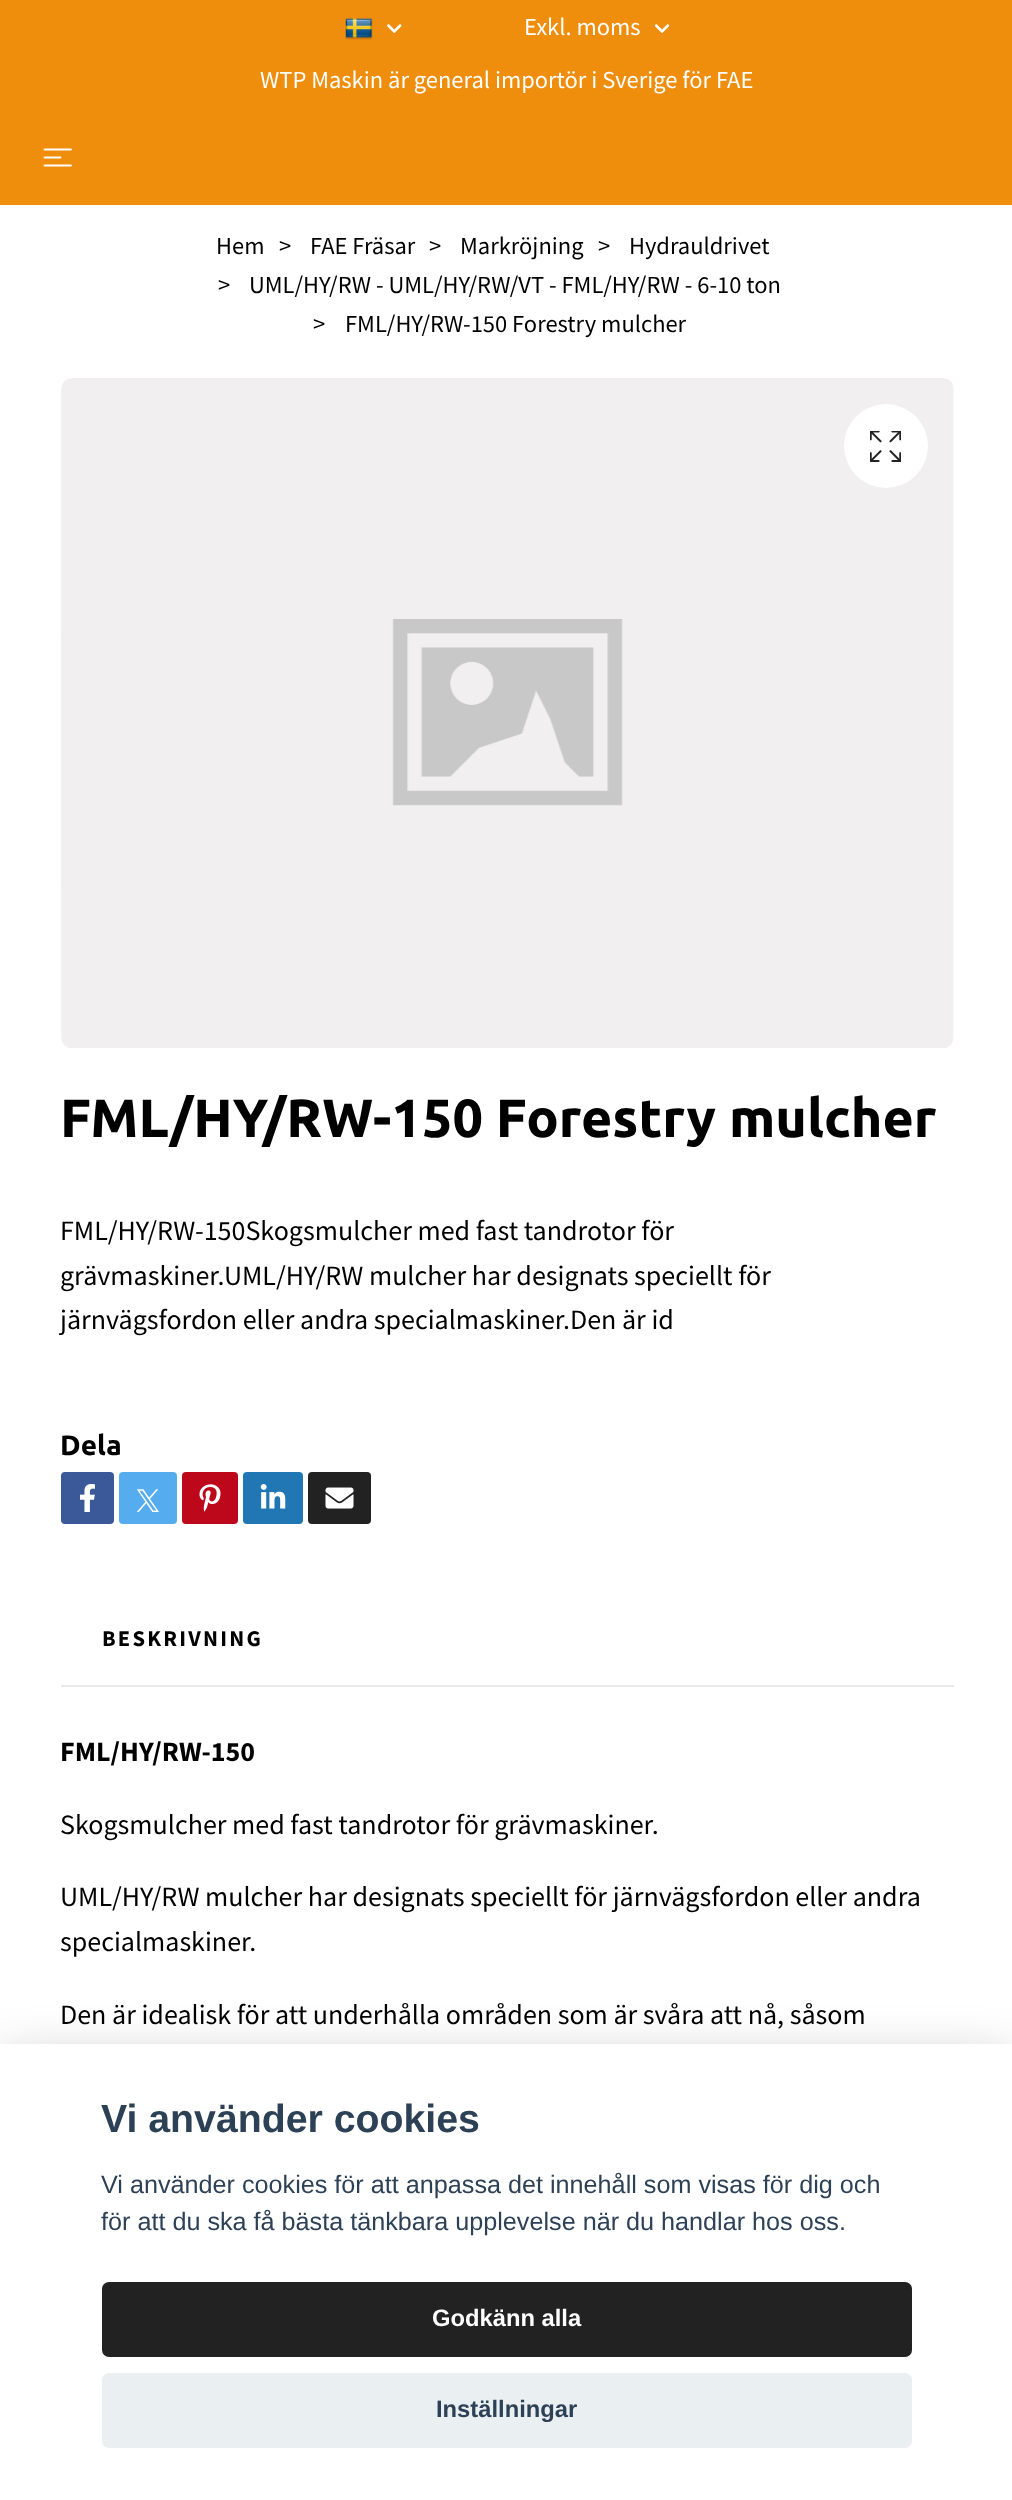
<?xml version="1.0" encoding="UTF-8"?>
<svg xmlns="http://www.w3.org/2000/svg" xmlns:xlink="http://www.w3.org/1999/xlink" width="1012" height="2500">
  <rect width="100%" height="100%" fill="#ffffff" />
  <rect width="1012" height="205" fill="#ef8d0c" />
  <image x="345" y="18" width="28" height="22" xlink:href="image1.png" />
  <image x="387" y="24" width="15" height="9" xlink:href="image2.png" />
  <image x="654" y="24" width="16" height="9" xlink:href="image3.png" />
  <path d="M 44.5 149.5 h 26.5 m -26.5 8 h 16 m -16 8 h 26.5" fill="none" stroke="#ffffff" stroke-width="1.8" stroke-linecap="round" stroke-linejoin="round" />
  <image x="61" y="378" width="893" height="670" xlink:href="image4.png" />
  <circle cx="886" cy="446" r="42" fill="#ffffff" />
  <image x="870" y="431" width="31" height="31" xlink:href="image5.png" />
  <rect x="61" y="1472" width="53" height="52" rx="4" fill="#3b5998" />
  <image x="80" y="1484" width="15" height="28" xlink:href="image6.png" />
  <rect x="119" y="1472" width="58" height="52" rx="4" fill="#55acee" />
  <rect x="182" y="1472" width="56" height="52" rx="4" fill="#bd081c" />
  <image x="199" y="1484" width="22" height="28" xlink:href="image7.png" />
  <rect x="243" y="1472" width="60" height="52" rx="4" fill="#2177b4" />
  <image x="260" y="1484" width="26" height="25" xlink:href="image8.png" />
  <rect x="308" y="1472" width="63" height="52" rx="4" fill="#222222" />
  <image x="325" y="1487" width="29" height="22" xlink:href="image9.png" />
  <image x="137" y="1489" width="22" height="23" xlink:href="image10.png" />
  <rect x="61" y="1685" width="893" height="2" fill="#e9e9e9" />
  <rect y="2062" width="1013" height="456" fill="#020203" fill-opacity="0.28" filter="blur(26px)" />
  <rect y="2044" width="1012" height="456" fill="#ffffff" />
  <rect x="102" y="2282" width="810" height="75" rx="7" fill="#222222" />
  <rect x="102" y="2373" width="810" height="75" rx="7" fill="#eaeff2" />
  <text x="524" y="35" style="font-family: Source Sans Pro; font-size: 24.5px; fill: #ffffff">Exkl. moms</text>
  <text x="260" y="88" style="font-family: Source Sans Pro; font-size: 24.5px; fill: #ffffff">WTP Maskin är general importör i Sverige för FAE</text>
  <text x="216" y="254" style="font-family: Source Sans Pro; font-size: 24.5px; fill: #000000">Hem</text>
  <text x="279" y="254" style="font-family: Source Sans Pro; font-size: 24.5px; fill: #000000">&gt;</text>
  <text x="310" y="254" style="font-family: Source Sans Pro; font-size: 24.5px; fill: #000000">FAE Fräsar</text>
  <text x="429" y="254" style="font-family: Source Sans Pro; font-size: 24.5px; fill: #000000">&gt;</text>
  <text x="460" y="254" style="font-family: Source Sans Pro; font-size: 24.5px; fill: #000000">Markröjning</text>
  <text x="598" y="254" style="font-family: Source Sans Pro; font-size: 24.5px; fill: #000000">&gt;</text>
  <text x="629" y="254" style="font-family: Source Sans Pro; font-size: 24.5px; fill: #000000">Hydrauldrivet</text>
  <text x="218" y="293" style="font-family: Source Sans Pro; font-size: 24.5px; fill: #000000">&gt;</text>
  <text x="249" y="293" style="font-family: Source Sans Pro; font-size: 24.5px; fill: #000000">UML/HY/RW - UML/HY/RW/VT - FML/HY/RW - 6-10 ton</text>
  <text x="313" y="332" style="font-family: Source Sans Pro; font-size: 24.5px; fill: #000000">&gt;</text>
  <text x="345" y="332" style="font-family: Source Sans Pro; font-size: 24.5px; fill: #000000">FML/HY/RW-150 Forestry mulcher</text>
  <text x="60" y="1137" style="font-family: Ubuntu; font-size: 53.75px; font-weight: bold; fill: #000000">FML/HY/RW-150 Forestry mulcher</text>
  <text x="60" y="1240" style="font-family: Source Sans Pro; font-size: 28px; fill: #000000">FML/HY/RW-150Skogsmulcher med fast tandrotor för</text>
  <text x="60" y="1285" style="font-family: Source Sans Pro; font-size: 28px; fill: #000000">grävmaskiner.UML/HY/RW mulcher har designats speciellt för</text>
  <text x="60" y="1329" style="font-family: Source Sans Pro; font-size: 28px; fill: #000000">järnvägsfordon eller andra specialmaskiner.Den är id</text>
  <text x="60" y="1455" style="font-family: Ubuntu; font-size: 28px; font-weight: bold; fill: #000000">Dela</text>
  <text x="102" y="1646" style="font-family: Source Sans Pro; font-size: 22.5px; font-weight: bold; letter-spacing: 2.25px; fill: #000000">BESKRIVNING</text>
  <text x="60" y="1761" style="font-family: Source Sans Pro; font-size: 28px; font-weight: bold; fill: #000000">FML/HY/RW-150</text>
  <text x="60" y="1834" style="font-family: Source Sans Pro; font-size: 28px; fill: #000000">Skogsmulcher med fast tandrotor för grävmaskiner.</text>
  <text x="60" y="1906" style="font-family: Source Sans Pro; font-size: 28px; fill: #000000">UML/HY/RW mulcher har designats speciellt för järnvägsfordon eller andra</text>
  <text x="60" y="1951" style="font-family: Source Sans Pro; font-size: 28px; fill: #000000">specialmaskiner.</text>
  <text x="60" y="2024" style="font-family: Source Sans Pro; font-size: 28px; fill: #000000">Den är idealisk för att underhålla områden som är svåra att nå, såsom</text>
  <text x="101" y="2132" style="font-family: Liberation Sans; font-size: 39.25px; font-weight: bold; fill: #2d4156">Vi använder cookies</text>
  <text x="101" y="2193" style="font-family: Liberation Sans; font-size: 25.2px; fill: #2d4156">Vi använder cookies för att anpassa det innehåll som visas för dig och</text>
  <text x="101" y="2230" style="font-family: Liberation Sans; font-size: 25.2px; fill: #2d4156">för att du ska få bästa tänkbara upplevelse när du handlar hos oss.</text>
  <text x="432" y="2326" style="font-family: Liberation Sans; font-size: 23.75px; font-weight: bold; fill: #ffffff">Godkänn alla</text>
  <text x="436" y="2417" style="font-family: Liberation Sans; font-size: 23.75px; font-weight: bold; fill: #2d4156">Inställningar</text>
</svg>
